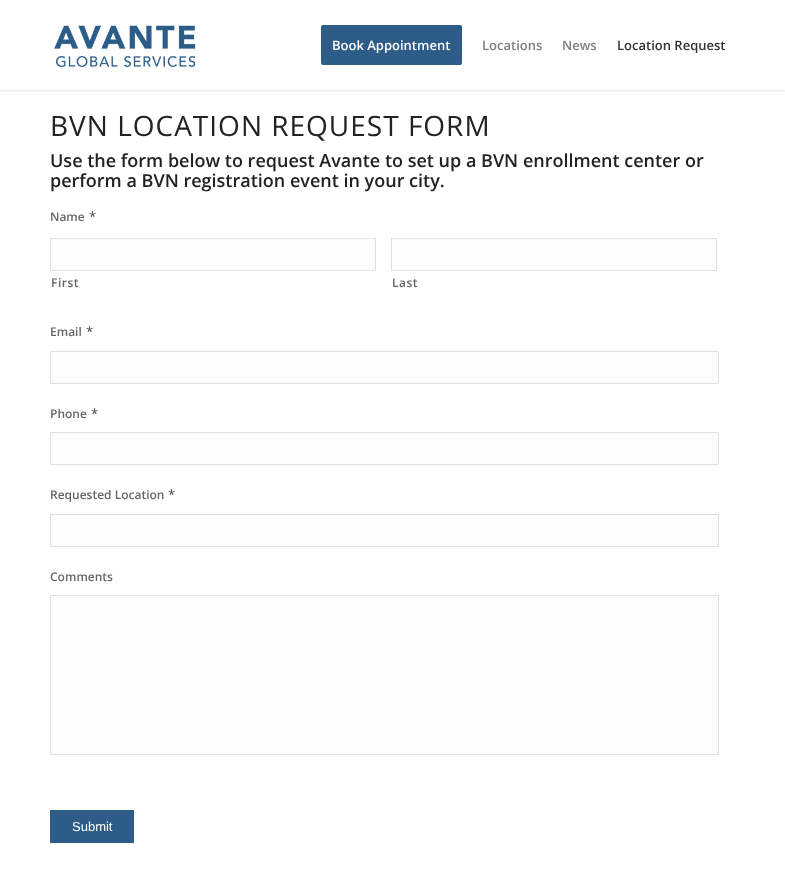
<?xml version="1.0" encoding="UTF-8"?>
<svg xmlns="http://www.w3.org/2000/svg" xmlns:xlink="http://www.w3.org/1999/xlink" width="785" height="895">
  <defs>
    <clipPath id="clip1"><rect x="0" y="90" width="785" height="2" /></clipPath>
  </defs>
  <rect width="100%" height="100%" fill="#ffffff" />
  <g clip-path="url(#clip1)">
    <rect x="-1" y="-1" width="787" height="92" fill="#000000" fill-opacity="0.1" filter="blur(1px)" />
  </g>
  <image x="54" y="25" width="142" height="43" xlink:href="image1.png" />
  <rect x="322" y="26" width="139" height="38" rx="1" fill="#2d5c88" stroke="#2d5c88" stroke-width="2" />
  <rect x="50.5" y="238.5" width="325" height="32" fill="#fcfcfc" stroke="#e1e1e1" />
  <rect x="391.5" y="238.5" width="325" height="32" fill="#fcfcfc" stroke="#e1e1e1" />
  <rect x="50.5" y="351.5" width="668" height="32" fill="#fcfcfc" stroke="#e1e1e1" />
  <rect x="50.5" y="432.5" width="668" height="32" fill="#fcfcfc" stroke="#e1e1e1" />
  <rect x="50.5" y="514.5" width="668" height="32" fill="#fcfcfc" stroke="#e1e1e1" />
  <rect x="50.5" y="595.5" width="668" height="159" fill="#fcfcfc" stroke="#e1e1e1" />
  <rect x="50" y="810" width="84" height="33" fill="#2d5c88" />
  <text x="332" y="50" style="font-family: Open Sans; font-size: 13px; font-weight: 600; fill: #ffffff">Book Appointment</text>
  <text x="482" y="50" style="font-family: Open Sans; font-size: 13px; font-weight: 600; fill: #808080">Locations</text>
  <text x="562" y="50" style="font-family: Open Sans; font-size: 13px; font-weight: 600; fill: #808080">News</text>
  <text x="617" y="50" style="font-family: Open Sans; font-size: 13px; font-weight: 600; fill: #333333">Location Request</text>
  <text x="50" y="136" style="font-family: Open Sans; font-size: 28px; letter-spacing: 1px; fill: #222222">BVN LOCATION REQUEST FORM</text>
  <text x="50" y="167" style="font-family: Open Sans; font-size: 18px; font-weight: 600; fill: #222222">Use the form below to request Avante to set up a BVN enrollment center or</text>
  <text x="50" y="187" style="font-family: Open Sans; font-size: 18px; font-weight: 600; fill: #222222">perform a BVN registration event in your city.</text>
  <text x="50" y="221" style="font-family: Open Sans; font-size: 12px; font-weight: 600; fill: #666666">Name</text>
  <text x="89" y="221" style="font-family: Open Sans; font-size: 13px; fill: #444444">*</text>
  <text x="51" y="287" style="font-family: Open Sans; font-size: 12px; font-weight: 600; letter-spacing: 0.5px; fill: #666666">First</text>
  <text x="392" y="287" style="font-family: Open Sans; font-size: 12px; font-weight: 600; letter-spacing: 0.5px; fill: #666666">Last</text>
  <text x="50" y="336" style="font-family: Open Sans; font-size: 12px; font-weight: 600; fill: #666666">Email</text>
  <text x="86" y="336" style="font-family: Open Sans; font-size: 13px; fill: #444444">*</text>
  <text x="50" y="418" style="font-family: Open Sans; font-size: 12px; font-weight: 600; fill: #666666">Phone</text>
  <text x="91" y="418" style="font-family: Open Sans; font-size: 13px; fill: #444444">*</text>
  <text x="50" y="499" style="font-family: Open Sans; font-size: 12px; font-weight: 600; fill: #666666">Requested Location</text>
  <text x="168" y="499" style="font-family: Open Sans; font-size: 13px; fill: #444444">*</text>
  <text x="50" y="581" style="font-family: Open Sans; font-size: 12px; font-weight: 600; fill: #666666">Comments</text>
  <text x="72" y="831" style="font-family: Liberation Sans; font-size: 13px; fill: #ffffff">Submit</text>
</svg>
